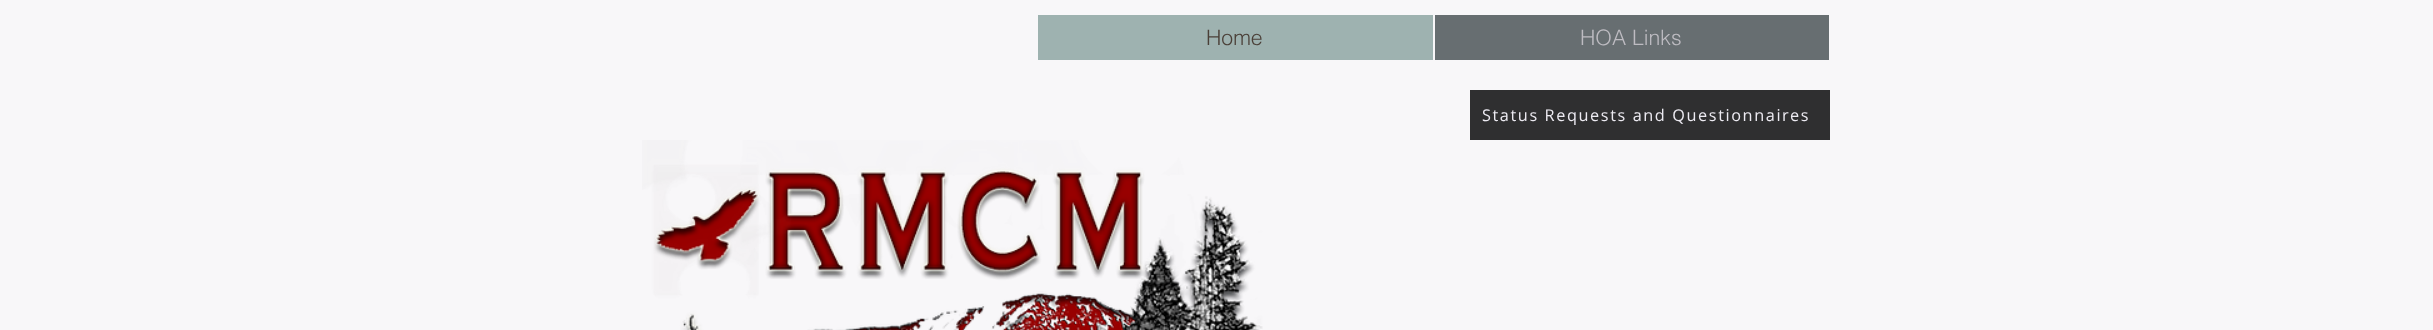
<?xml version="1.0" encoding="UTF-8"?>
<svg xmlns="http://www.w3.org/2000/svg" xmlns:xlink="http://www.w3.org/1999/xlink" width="2433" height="330">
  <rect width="100%" height="100%" fill="#f8f7f9" />
  <rect x="1038" y="15" width="395" height="45" fill="#9eb2b0" />
  <rect x="1435" y="15" width="394" height="45" fill="#676e71" />
  <rect x="1470" y="90" width="360" height="50" fill="#2f2f30" />
  <image x="642" y="140" width="621" height="190" xlink:href="image1.png" />
  <text x="1206" y="45" style="font-family: helvetica; font-size: 21.25px; font-weight: 300; fill: #4a3f37">Home</text>
  <text x="1580" y="45" style="font-family: helvetica; font-size: 21.25px; font-weight: 300; fill: #bebcc2">HOA Links</text>
  <text x="1482" y="121" style="font-family: Open Sans; font-size: 16.25px; letter-spacing: 1.6px; fill: #edebf2">Status Requests and Questionnaires</text>
</svg>
